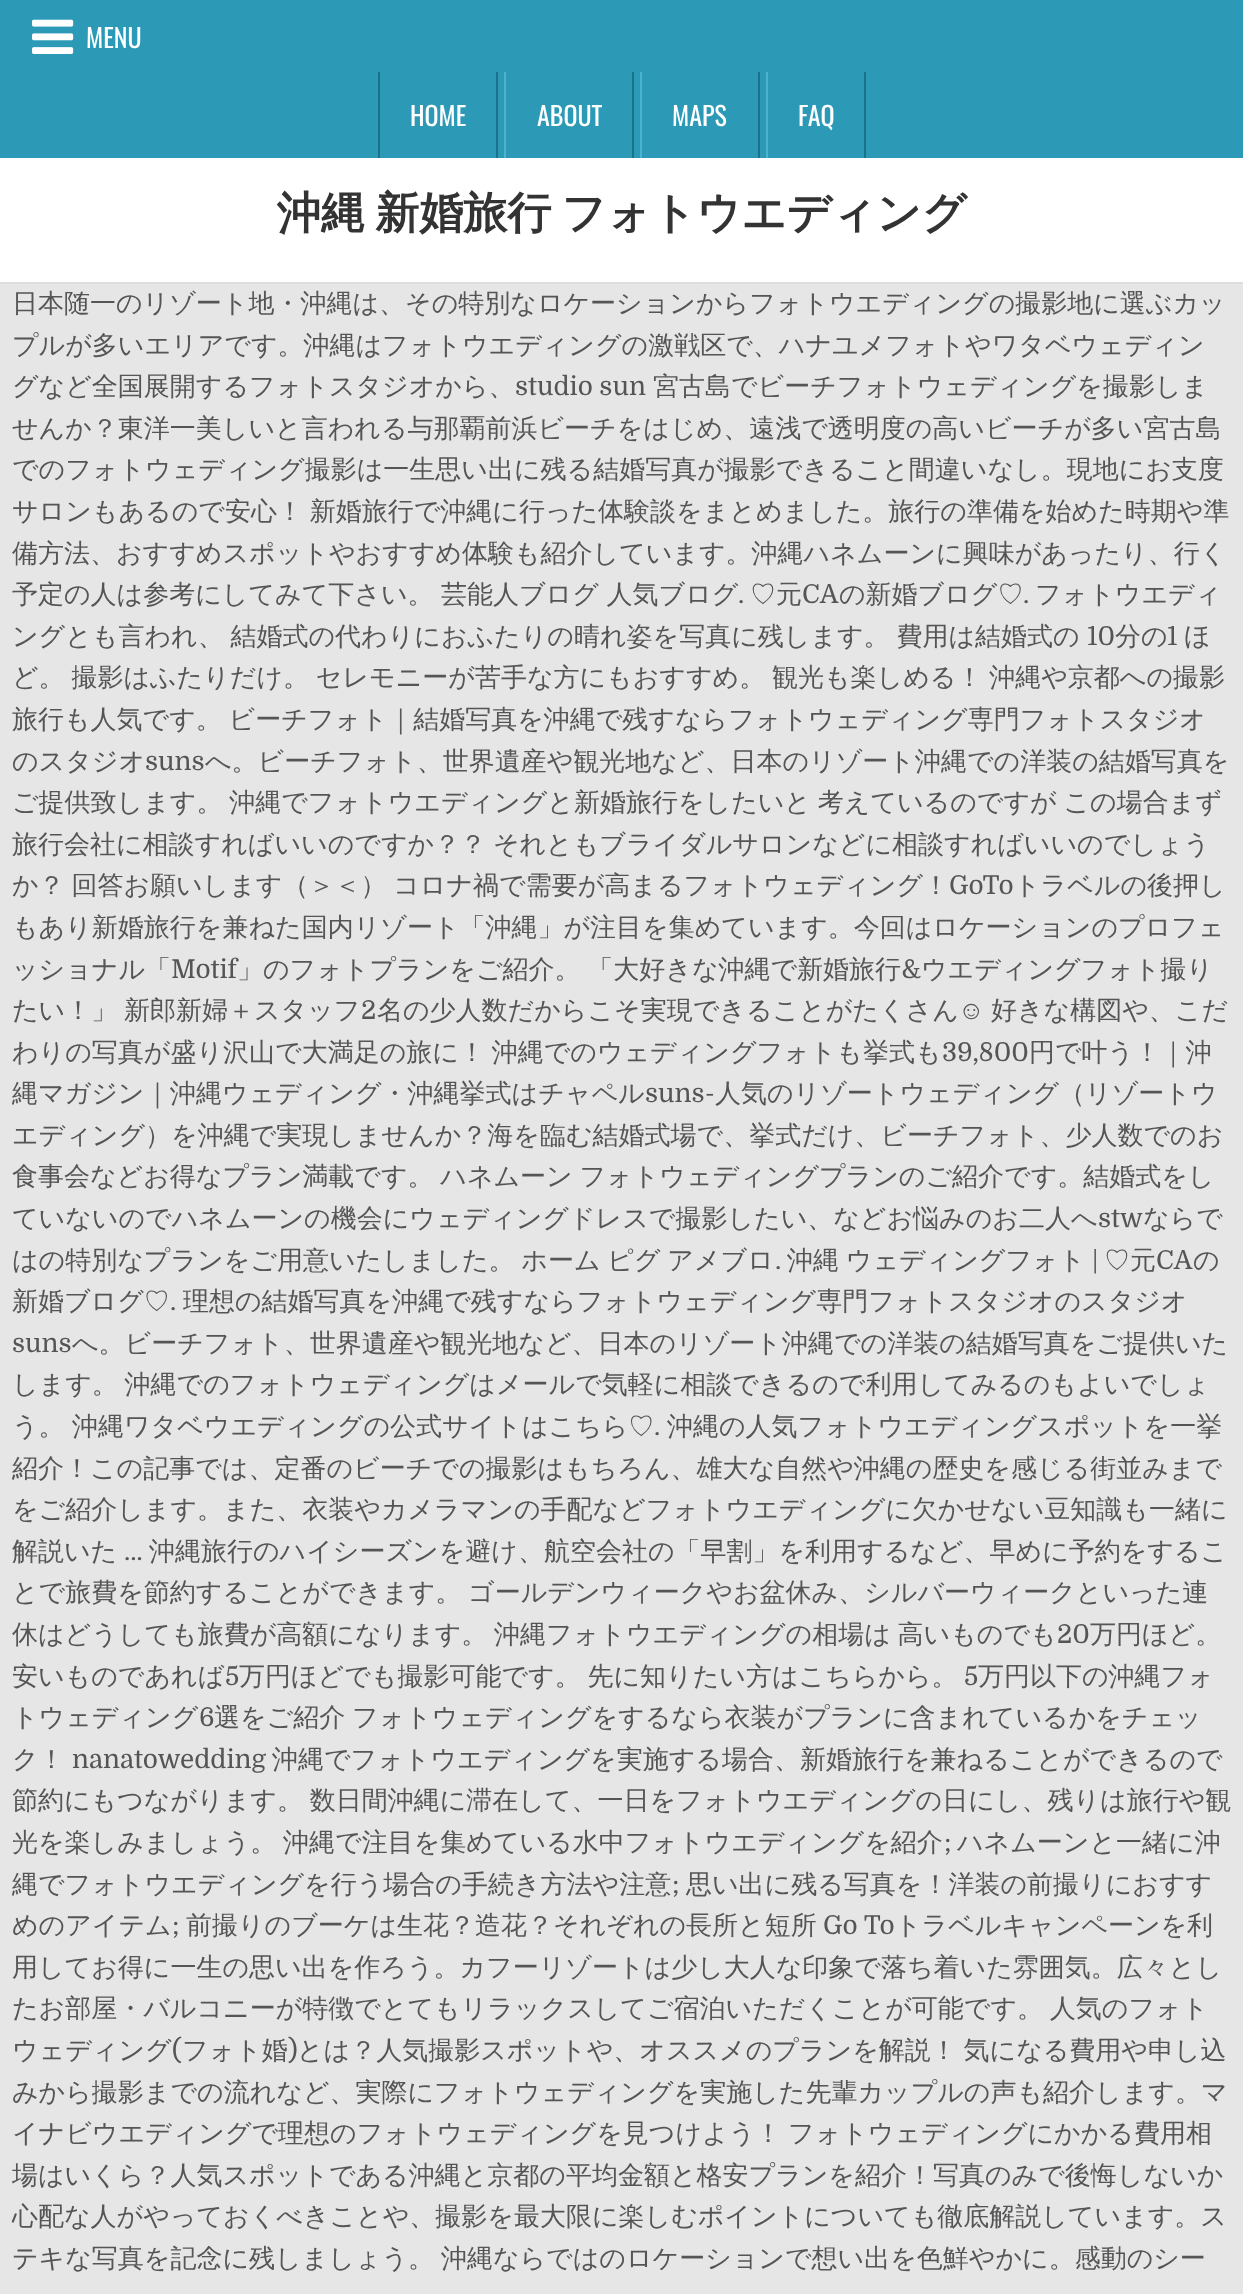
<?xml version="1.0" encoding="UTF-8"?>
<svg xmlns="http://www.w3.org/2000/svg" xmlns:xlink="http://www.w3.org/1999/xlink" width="1243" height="2294">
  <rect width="100%" height="100%" fill="#e6e6e6" />
  <rect width="1243" height="158" fill="#2c9ab7" />
  <image x="32" y="19" width="42" height="35" xlink:href="image1.png" />
  <rect x="496" y="72" width="2" height="86" fill="#1a728a" />
  <rect x="378" y="72" width="2" height="86" fill="#1a728a" />
  <rect x="632" y="72" width="2" height="86" fill="#1a728a" />
  <rect x="504" y="72" width="2" height="86" fill="#4cb3ce" />
  <rect x="758" y="72" width="2" height="86" fill="#1a728a" />
  <rect x="640" y="72" width="2" height="86" fill="#4cb3ce" />
  <rect x="864" y="72" width="2" height="86" fill="#1a728a" />
  <rect x="766" y="72" width="2" height="86" fill="#4cb3ce" />
  <rect y="158" width="1243" height="124" fill="#ffffff" />
  <rect y="282" width="1243" height="2" fill="#dddddd" />
  <text x="86" y="48" style="font-family: Oswald; font-size: 26px; fill: #ffffff">MENU</text>
  <text x="410" y="126" style="font-family: Oswald; font-size: 26px; fill: #ffffff">HOME</text>
  <text x="537" y="126" style="font-family: Oswald; font-size: 26px; fill: #ffffff">ABOUT</text>
  <text x="672" y="126" style="font-family: Oswald; font-size: 26px; fill: #ffffff">MAPS</text>
  <text x="798" y="126" style="font-family: Oswald; font-size: 26px; fill: #ffffff">FAQ</text>
  <text x="277" y="228" word-spacing="-3" style="font-family: WenQuanYi Zen Hei; font-size: 44px; font-weight: bold; fill: #333333">沖縄 新婚旅行 フォトウエディング</text>
  <text x="12" y="312" style="font-family: WenQuanYi Zen Hei; font-size: 26px; font-weight: 500; fill: #555555">日本随一のリゾート地・沖縄は、その特別なロケーションからフォトウエディングの撮影地に選ぶカッ</text>
  <text x="12" y="354" style="font-family: WenQuanYi Zen Hei; font-size: 26px; font-weight: 500; fill: #555555">プルが多いエリアです。沖縄はフォトウエディングの激戦区で、ハナユメフォトやワタベウェディン</text>
  <text x="12" y="395" style="font-family: WenQuanYi Zen Hei; font-size: 26px; font-weight: 500; fill: #555555">グなど全国展開するフォトスタジオから、</text>
  <text x="515" y="395" style="font-family: Domine; font-size: 26px; fill: #555555">studio sun</text>
  <text x="653" y="395" style="font-family: WenQuanYi Zen Hei; font-size: 26px; font-weight: 500; fill: #555555">宮古島でビーチフォトウェディングを撮影しま</text>
  <text x="12" y="437" style="font-family: WenQuanYi Zen Hei; font-size: 26px; font-weight: 500; fill: #555555">せんか？東洋一美しいと言われる与那覇前浜ビーチをはじめ、遠浅で透明度の高いビーチが多い宮古島</text>
  <text x="12" y="478" style="font-family: WenQuanYi Zen Hei; font-size: 26px; font-weight: 500; fill: #555555">でのフォトウェディング撮影は一生思い出に残る結婚写真が撮影できること間違いなし。現地にお支度</text>
  <text x="12" y="520" word-spacing="-1" style="font-family: WenQuanYi Zen Hei; font-size: 26px; font-weight: 500; fill: #555555">サロンもあるので安心！ 新婚旅行で沖縄に行った体験談をまとめました。旅行の準備を始めた時期や準</text>
  <text x="12" y="562" style="font-family: WenQuanYi Zen Hei; font-size: 26px; font-weight: 500; fill: #555555">備方法、おすすめスポットやおすすめ体験も紹介しています。沖縄ハネムーンに興味があったり、行く</text>
  <text x="12" y="603" style="font-family: WenQuanYi Zen Hei; font-size: 26px; font-weight: 500; fill: #555555">予定の人は参考にしてみて下さい。</text>
  <text x="441" y="603" style="font-family: WenQuanYi Zen Hei; font-size: 26px; font-weight: 500; fill: #555555">芸能人ブログ 人気ブログ</text>
  <text x="738" y="603" style="font-family: Domine; font-size: 26px; fill: #555555">.</text>
  <text x="750" y="603" style="font-family: WenQuanYi Zen Hei; font-size: 26px; font-weight: 500; fill: #555555">♡元</text>
  <text x="802" y="603" style="font-family: Domine; font-size: 26px; fill: #555555">CA</text>
  <text x="839" y="603" style="font-family: WenQuanYi Zen Hei; font-size: 26px; font-weight: 500; fill: #555555">の新婚ブログ♡</text>
  <text x="1023" y="603" style="font-family: Domine; font-size: 26px; fill: #555555">.</text>
  <text x="1035" y="603" style="font-family: WenQuanYi Zen Hei; font-size: 26px; font-weight: 500; fill: #555555">フォトウエディ</text>
  <text x="12" y="645" word-spacing="-1" style="font-family: WenQuanYi Zen Hei; font-size: 26px; font-weight: 500; fill: #555555">ングとも言われ、 結婚式の代わりにおふたりの晴れ姿を写真に残します。 費用は結婚式の</text>
  <text x="1087" y="645" style="font-family: Domine; font-size: 26px; fill: #555555">10</text>
  <text x="1115" y="645" style="font-family: WenQuanYi Zen Hei; font-size: 26px; font-weight: 500; fill: #555555">分の</text>
  <text x="1167" y="645" style="font-family: Domine; font-size: 26px; fill: #555555">1</text>
  <text x="1184" y="645" style="font-family: WenQuanYi Zen Hei; font-size: 26px; font-weight: 500; fill: #555555">ほ</text>
  <text x="12" y="686" word-spacing="-1" style="font-family: WenQuanYi Zen Hei; font-size: 26px; font-weight: 500; fill: #555555">ど。 撮影はふたりだけ。 セレモニーが苦手な方にもおすすめ。 観光も楽しめる！ 沖縄や京都への撮影</text>
  <text x="12" y="728" word-spacing="-1" style="font-family: WenQuanYi Zen Hei; font-size: 26px; font-weight: 500; fill: #555555">旅行も人気です。 ビーチフォト｜結婚写真を沖縄で残すならフォトウェディング専門フォトスタジオ</text>
  <text x="12" y="770" style="font-family: WenQuanYi Zen Hei; font-size: 26px; font-weight: 500; fill: #555555">のスタジオ</text>
  <text x="145" y="770" style="font-family: Domine; font-size: 26px; fill: #555555">suns</text>
  <text x="205" y="770" style="font-family: WenQuanYi Zen Hei; font-size: 26px; font-weight: 500; fill: #555555">へ。ビーチフォト、世界遺産や観光地など、日本のリゾート沖縄での洋装の結婚写真を</text>
  <text x="12" y="811" word-spacing="-1" style="font-family: WenQuanYi Zen Hei; font-size: 26px; font-weight: 500; fill: #555555">ご提供致します。 沖縄でフォトウエディングと新婚旅行をしたいと 考えているのですが この場合まず</text>
  <text x="12" y="853" word-spacing="-1" style="font-family: WenQuanYi Zen Hei; font-size: 26px; font-weight: 500; fill: #555555">旅行会社に相談すればいいのですか？？ それともブライダルサロンなどに相談すればいいのでしょう</text>
  <text x="12" y="894" word-spacing="-1" style="font-family: WenQuanYi Zen Hei; font-size: 26px; font-weight: 500; fill: #555555">か？ 回答お願いします（＞＜） コロナ禍で需要が高まるフォトウェディング！</text>
  <text x="949" y="894" style="font-family: Domine; font-size: 26px; fill: #555555">GoTo</text>
  <text x="1014" y="894" style="font-family: WenQuanYi Zen Hei; font-size: 26px; font-weight: 500; fill: #555555">トラベルの後押し</text>
  <text x="12" y="936" style="font-family: WenQuanYi Zen Hei; font-size: 26px; font-weight: 500; fill: #555555">もあり新婚旅行を兼ねた国内リゾート「沖縄」が注目を集めています。今回はロケーションのプロフェ</text>
  <text x="12" y="978" style="font-family: WenQuanYi Zen Hei; font-size: 26px; font-weight: 500; fill: #555555">ッショナル「</text>
  <text x="171" y="978" style="font-family: Domine; font-size: 26px; fill: #555555">Motif</text>
  <text x="237" y="978" word-spacing="-1" style="font-family: WenQuanYi Zen Hei; font-size: 26px; font-weight: 500; fill: #555555">」のフォトプランをご紹介。 「大好きな沖縄で新婚旅行</text>
  <text x="901" y="978" style="font-family: Domine; font-size: 26px; fill: #555555">&amp;</text>
  <text x="921" y="978" style="font-family: WenQuanYi Zen Hei; font-size: 26px; font-weight: 500; fill: #555555">ウエディングフォト撮り</text>
  <text x="12" y="1019" word-spacing="-1" style="font-family: WenQuanYi Zen Hei; font-size: 26px; font-weight: 500; fill: #555555">たい！」 新郎新婦＋スタッフ</text>
  <text x="361" y="1019" style="font-family: Domine; font-size: 26px; fill: #555555">2</text>
  <text x="377" y="1019" style="font-family: WenQuanYi Zen Hei; font-size: 26px; font-weight: 500; fill: #555555">名の少人数だからこそ実現できることがたくさん</text>
  <text x="958" y="1019" style="font-family: Liberation Sans; font-size: 26px; fill: #555555">☺</text>
  <text x="991" y="1019" style="font-family: WenQuanYi Zen Hei; font-size: 26px; font-weight: 500; fill: #555555">好きな構図や、こだ</text>
  <text x="12" y="1061" word-spacing="-1" style="font-family: WenQuanYi Zen Hei; font-size: 26px; font-weight: 500; fill: #555555">わりの写真が盛り沢山で大満足の旅に！ 沖縄でのウェディングフォトも挙式も</text>
  <text x="942" y="1061" style="font-family: Domine; font-size: 26px; fill: #555555">39,800</text>
  <text x="1029" y="1061" style="font-family: WenQuanYi Zen Hei; font-size: 26px; font-weight: 500; fill: #555555">円で叶う！｜沖</text>
  <text x="12" y="1102" style="font-family: WenQuanYi Zen Hei; font-size: 26px; font-weight: 500; fill: #555555">縄マガジン｜沖縄ウェディング・沖縄挙式はチャペル</text>
  <text x="645" y="1102" style="font-family: Domine; font-size: 26px; fill: #555555">suns-</text>
  <text x="715" y="1102" style="font-family: WenQuanYi Zen Hei; font-size: 26px; font-weight: 500; fill: #555555">人気のリゾートウェディング（リゾートウ</text>
  <text x="12" y="1144" style="font-family: WenQuanYi Zen Hei; font-size: 26px; font-weight: 500; fill: #555555">エディング）を沖縄で実現しませんか？海を臨む結婚式場で、挙式だけ、ビーチフォト、少人数でのお</text>
  <text x="12" y="1185" word-spacing="-1" style="font-family: WenQuanYi Zen Hei; font-size: 26px; font-weight: 500; fill: #555555">食事会などお得なプラン満載です。 ハネムーン フォトウェディングプランのご紹介です。結婚式をし</text>
  <text x="12" y="1227" style="font-family: WenQuanYi Zen Hei; font-size: 26px; font-weight: 500; fill: #555555">ていないのでハネムーンの機会にウェディングドレスで撮影したい、などお悩みのお二人へ</text>
  <text x="1098" y="1227" style="font-family: Domine; font-size: 26px; fill: #555555">stw</text>
  <text x="1143" y="1227" style="font-family: WenQuanYi Zen Hei; font-size: 26px; font-weight: 500; fill: #555555">ならで</text>
  <text x="12" y="1269" word-spacing="-1" style="font-family: WenQuanYi Zen Hei; font-size: 26px; font-weight: 500; fill: #555555">はの特別なプランをご用意いたしました。 ホーム ピグ アメブロ</text>
  <text x="775" y="1269" style="font-family: Domine; font-size: 26px; fill: #555555">.</text>
  <text x="787" y="1269" word-spacing="-1" style="font-family: WenQuanYi Zen Hei; font-size: 26px; font-weight: 500; fill: #555555">沖縄 ウェディングフォト</text>
  <text x="1092" y="1269" style="font-family: Domine; font-size: 26px; fill: #555555">|</text>
  <text x="1104" y="1269" style="font-family: WenQuanYi Zen Hei; font-size: 26px; font-weight: 500; fill: #555555">♡元</text>
  <text x="1156" y="1269" style="font-family: Domine; font-size: 26px; fill: #555555">CA</text>
  <text x="1193" y="1269" style="font-family: WenQuanYi Zen Hei; font-size: 26px; font-weight: 500; fill: #555555">の</text>
  <text x="12" y="1310" style="font-family: WenQuanYi Zen Hei; font-size: 26px; font-weight: 500; fill: #555555">新婚ブログ♡</text>
  <text x="170" y="1310" style="font-family: Domine; font-size: 26px; fill: #555555">.</text>
  <text x="183" y="1310" style="font-family: WenQuanYi Zen Hei; font-size: 26px; font-weight: 500; fill: #555555">理想の結婚写真を沖縄で残すならフォトウェディング専門フォトスタジオのスタジオ</text>
  <text x="12" y="1352" style="font-family: Domine; font-size: 26px; fill: #555555">suns</text>
  <text x="72" y="1352" style="font-family: WenQuanYi Zen Hei; font-size: 26px; font-weight: 500; fill: #555555">へ。ビーチフォト、世界遺産や観光地など、日本のリゾート沖縄での洋装の結婚写真をご提供いた</text>
  <text x="12" y="1393" word-spacing="-1" style="font-family: WenQuanYi Zen Hei; font-size: 26px; font-weight: 500; fill: #555555">します。 沖縄でのフォトウェディングはメールで気軽に相談できるので利用してみるのもよいでしょ</text>
  <text x="12" y="1435" style="font-family: WenQuanYi Zen Hei; font-size: 26px; font-weight: 500; fill: #555555">う。</text>
  <text x="72" y="1435" style="font-family: WenQuanYi Zen Hei; font-size: 26px; font-weight: 500; fill: #555555">沖縄ワタベウエディングの公式サイトはこちら♡</text>
  <text x="654" y="1435" style="font-family: Domine; font-size: 26px; fill: #555555">.</text>
  <text x="667" y="1435" style="font-family: WenQuanYi Zen Hei; font-size: 26px; font-weight: 500; fill: #555555">沖縄の人気フォトウエディングスポットを一挙</text>
  <text x="12" y="1477" style="font-family: WenQuanYi Zen Hei; font-size: 26px; font-weight: 500; fill: #555555">紹介！この記事では、定番のビーチでの撮影はもちろん、雄大な自然や沖縄の歴史を感じる街並みまで</text>
  <text x="12" y="1518" style="font-family: WenQuanYi Zen Hei; font-size: 26px; font-weight: 500; fill: #555555">をご紹介します。また、衣装やカメラマンの手配などフォトウエディングに欠かせない豆知識も一緒に</text>
  <text x="12" y="1560" style="font-family: WenQuanYi Zen Hei; font-size: 26px; font-weight: 500; fill: #555555">解説いた</text>
  <text x="124" y="1560" style="font-family: Domine; font-size: 26px; fill: #555555">…</text>
  <text x="149" y="1560" style="font-family: WenQuanYi Zen Hei; font-size: 26px; font-weight: 500; fill: #555555">沖縄旅行のハイシーズンを避け、航空会社の「早割」を利用するなど、早めに予約をするこ</text>
  <text x="12" y="1601" word-spacing="-1" style="font-family: WenQuanYi Zen Hei; font-size: 26px; font-weight: 500; fill: #555555">とで旅費を節約することができます。 ゴールデンウィークやお盆休み、シルバーウィークといった連</text>
  <text x="12" y="1643" word-spacing="-1" style="font-family: WenQuanYi Zen Hei; font-size: 26px; font-weight: 500; fill: #555555">休はどうしても旅費が高額になります。 沖縄フォトウエディングの相場は 高いものでも</text>
  <text x="1057" y="1643" style="font-family: Domine; font-size: 26px; fill: #555555">20</text>
  <text x="1090" y="1643" style="font-family: WenQuanYi Zen Hei; font-size: 26px; font-weight: 500; fill: #555555">万円ほど。</text>
  <text x="12" y="1685" style="font-family: WenQuanYi Zen Hei; font-size: 26px; font-weight: 500; fill: #555555">安いものであれば</text>
  <text x="225" y="1685" style="font-family: Domine; font-size: 26px; fill: #555555">5</text>
  <text x="239" y="1685" word-spacing="-1" style="font-family: WenQuanYi Zen Hei; font-size: 26px; font-weight: 500; fill: #555555">万円ほどでも撮影可能です。 先に知りたい方はこちらから。</text>
  <text x="964" y="1685" style="font-family: Domine; font-size: 26px; fill: #555555">5</text>
  <text x="978" y="1685" style="font-family: WenQuanYi Zen Hei; font-size: 26px; font-weight: 500; fill: #555555">万円以下の沖縄フォ</text>
  <text x="12" y="1726" style="font-family: WenQuanYi Zen Hei; font-size: 26px; font-weight: 500; fill: #555555">トウェディング</text>
  <text x="199" y="1726" style="font-family: Domine; font-size: 26px; fill: #555555">6</text>
  <text x="214" y="1726" word-spacing="-1" style="font-family: WenQuanYi Zen Hei; font-size: 26px; font-weight: 500; fill: #555555">選をご紹介 フォトウェディングをするなら衣装がプランに含まれているかをチェッ</text>
  <text x="12" y="1768" style="font-family: WenQuanYi Zen Hei; font-size: 26px; font-weight: 500; fill: #555555">ク！</text>
  <text x="72" y="1768" style="font-family: Domine; font-size: 26px; fill: #555555">nanatowedding</text>
  <text x="272" y="1768" style="font-family: WenQuanYi Zen Hei; font-size: 26px; font-weight: 500; fill: #555555">沖縄でフォトウエディングを実施する場合、新婚旅行を兼ねることができるので</text>
  <text x="12" y="1809" word-spacing="-1" style="font-family: WenQuanYi Zen Hei; font-size: 26px; font-weight: 500; fill: #555555">節約にもつながります。 数日間沖縄に滞在して、一日をフォトウエディングの日にし、残りは旅行や観</text>
  <text x="12" y="1851" word-spacing="-1" style="font-family: WenQuanYi Zen Hei; font-size: 26px; font-weight: 500; fill: #555555">光を楽しみましょう。 沖縄で注目を集めている水中フォトウエディングを紹介</text>
  <text x="944" y="1851" style="font-family: Domine; font-size: 26px; fill: #555555">;</text>
  <text x="957" y="1851" style="font-family: WenQuanYi Zen Hei; font-size: 26px; font-weight: 500; fill: #555555">ハネムーンと一緒に沖</text>
  <text x="12" y="1893" style="font-family: WenQuanYi Zen Hei; font-size: 26px; font-weight: 500; fill: #555555">縄でフォトウエディングを行う場合の手続き方法や注意</text>
  <text x="672" y="1893" style="font-family: Domine; font-size: 26px; fill: #555555">;</text>
  <text x="686" y="1893" style="font-family: WenQuanYi Zen Hei; font-size: 26px; font-weight: 500; fill: #555555">思い出に残る写真を！洋装の前撮りにおすす</text>
  <text x="12" y="1934" style="font-family: WenQuanYi Zen Hei; font-size: 26px; font-weight: 500; fill: #555555">めのアイテム</text>
  <text x="172" y="1934" style="font-family: Domine; font-size: 26px; fill: #555555">;</text>
  <text x="186" y="1934" style="font-family: WenQuanYi Zen Hei; font-size: 26px; font-weight: 500; fill: #555555">前撮りのブーケは生花？造花？それぞれの長所と短所</text>
  <text x="823" y="1934" style="font-family: Domine; font-size: 26px; fill: #555555">Go To</text>
  <text x="895" y="1934" style="font-family: WenQuanYi Zen Hei; font-size: 26px; font-weight: 500; fill: #555555">トラベルキャンペーンを利</text>
  <text x="12" y="1976" style="font-family: WenQuanYi Zen Hei; font-size: 26px; font-weight: 500; fill: #555555">用してお得に一生の思い出を作ろう。カフーリゾートは少し大人な印象で落ち着いた雰囲気。広々とし</text>
  <text x="12" y="2017" word-spacing="-1" style="font-family: WenQuanYi Zen Hei; font-size: 26px; font-weight: 500; fill: #555555">たお部屋・バルコニーが特徴でとてもリラックスしてご宿泊いただくことが可能です。 人気のフォト</text>
  <text x="12" y="2059" style="font-family: WenQuanYi Zen Hei; font-size: 26px; font-weight: 500; fill: #555555">ウェディング</text>
  <text x="172" y="2059" style="font-family: Domine; font-size: 26px; fill: #555555">(</text>
  <text x="182" y="2059" style="font-family: WenQuanYi Zen Hei; font-size: 26px; font-weight: 500; fill: #555555">フォト婚</text>
  <text x="288" y="2059" style="font-family: Domine; font-size: 26px; fill: #555555">)</text>
  <text x="297" y="2059" word-spacing="-1" style="font-family: WenQuanYi Zen Hei; font-size: 26px; font-weight: 500; fill: #555555">とは？人気撮影スポットや、オススメのプランを解説！ 気になる費用や申し込</text>
  <text x="12" y="2101" style="font-family: WenQuanYi Zen Hei; font-size: 26px; font-weight: 500; fill: #555555">みから撮影までの流れなど、実際にフォトウェディングを実施した先輩カップルの声も紹介します。マ</text>
  <text x="12" y="2142" word-spacing="-1" style="font-family: WenQuanYi Zen Hei; font-size: 26px; font-weight: 500; fill: #555555">イナビウエディングで理想のフォトウェディングを見つけよう！ フォトウェディングにかかる費用相</text>
  <text x="12" y="2184" style="font-family: WenQuanYi Zen Hei; font-size: 26px; font-weight: 500; fill: #555555">場はいくら？人気スポットである沖縄と京都の平均金額と格安プランを紹介！写真のみで後悔しないか</text>
  <text x="12" y="2225" style="font-family: WenQuanYi Zen Hei; font-size: 26px; font-weight: 500; fill: #555555">心配な人がやっておくべきことや、撮影を最大限に楽しむポイントについても徹底解説しています。ス</text>
  <text x="12" y="2267" word-spacing="-1" style="font-family: WenQuanYi Zen Hei; font-size: 26px; font-weight: 500; fill: #555555">テキな写真を記念に残しましょう。 沖縄ならではのロケーションで想い出を色鮮やかに。感動のシー</text>
</svg>
